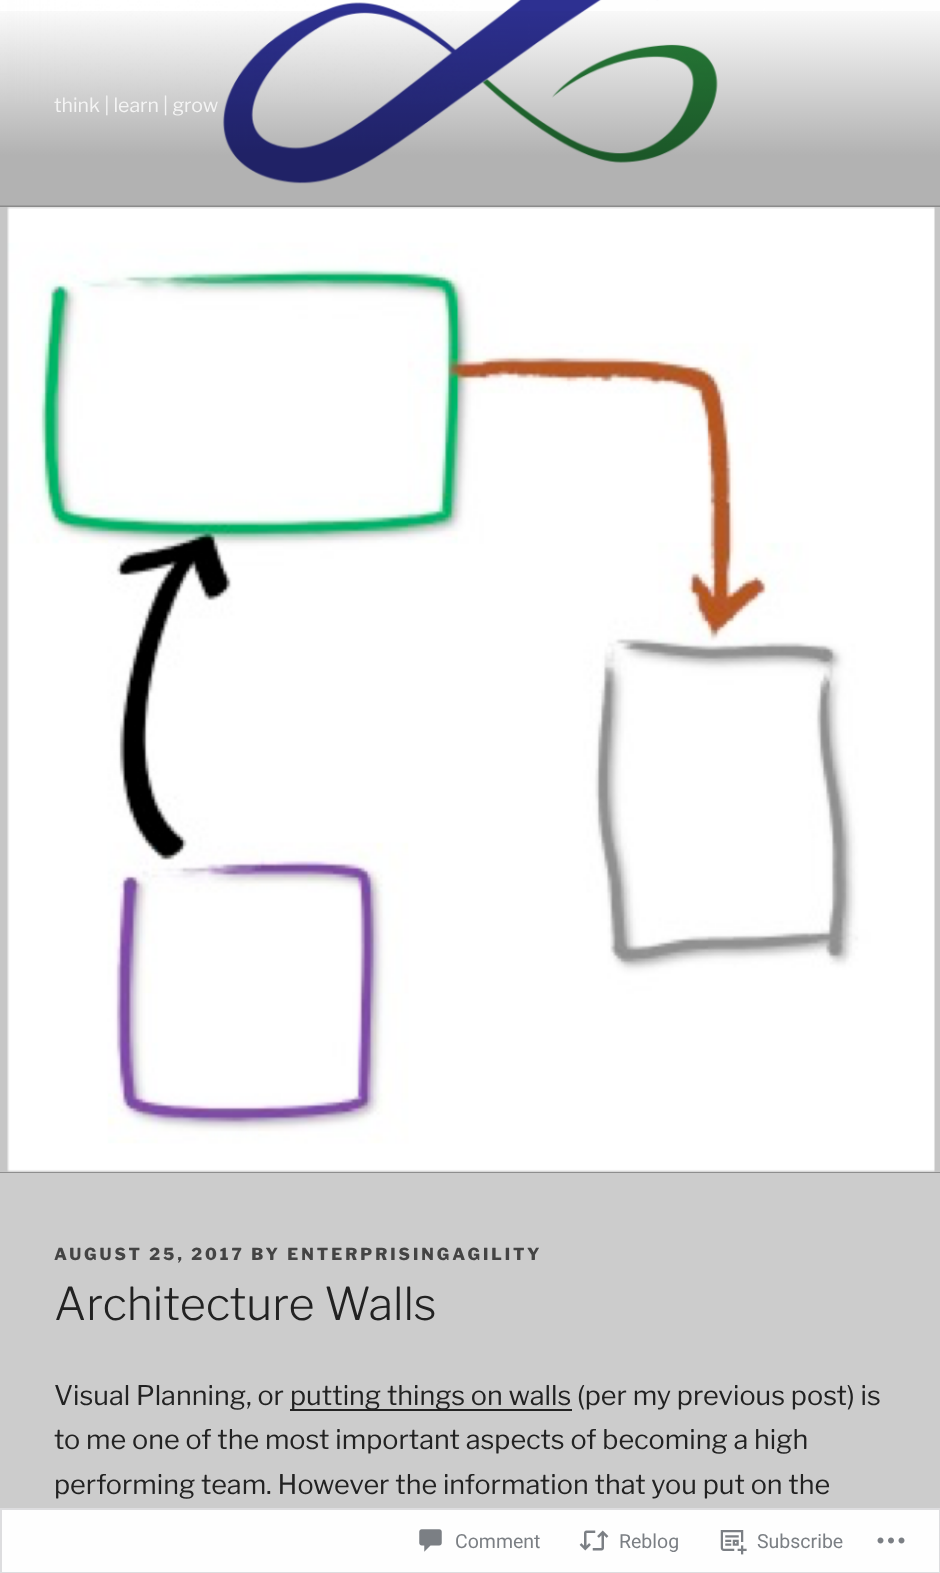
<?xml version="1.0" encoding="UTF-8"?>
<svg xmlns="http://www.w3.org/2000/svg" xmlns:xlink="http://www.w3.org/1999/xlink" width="940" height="1573">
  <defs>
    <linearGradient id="g1" gradientUnits="userSpaceOnUse" x1="470" y1="0" x2="470" y2="207"><stop offset="0" stop-color="#000000" stop-opacity="0" /><stop offset="0.75" stop-color="#000000" stop-opacity="0.3" /><stop offset="1" stop-color="#000000" stop-opacity="0.3" /></linearGradient>
  </defs>
  <rect width="100%" height="100%" fill="#c6c6c6" />
  <image x="0" y="0" width="940" height="206" xlink:href="image1.png" />
  <rect y="11" width="940" height="196" fill="url(#g1)" />
  <rect y="1172" width="940" height="1" fill="#8e8e8e" />
  <image x="7" y="207" width="928" height="965" xlink:href="image2.png" />
  <rect y="1173" width="940" height="335" fill="#cccccc" />
  <rect y="1508" width="940" height="65" fill="#fefefe" />
  <rect x="290" y="1409" width="282" height="2" fill="#222222" />
  <rect x="1" y="1509" width="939" height="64" fill="none" stroke="#dcdcde" stroke-opacity="0.98" stroke-width="2" />
  <image x="419" y="1529" width="23" height="23" xlink:href="image3.png" />
  <image x="579" y="1530" width="30" height="21" xlink:href="image4.png" />
  <image x="720" y="1530" width="27" height="25" xlink:href="image5.png" />
  <image x="877" y="1537" width="28" height="7" xlink:href="image6.png" />
  <text x="54" y="112" style="font-family: 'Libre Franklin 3'; font-size: 19.5px; font-weight: 100; fill: #f4f4f4">think | learn | grow</text>
  <text x="54" y="1260" style="font-family: Libre Franklin; font-size: 16.5px; font-weight: 100; letter-spacing: 3px; fill: #444444">AUGUST 25, 2017 BY ENTERPRISINGAGILITY</text>
  <text x="54" y="1320" style="font-family: 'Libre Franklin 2'; font-size: 45px; font-weight: 100; fill: #222222">Architecture Walls</text>
  <text x="54" y="1405" style="font-family: 'Libre Franklin 3'; font-size: 27px; font-weight: 100; fill: #222222">Visual Planning, or</text>
  <text x="290" y="1405" style="font-family: 'Libre Franklin 3'; font-size: 27px; font-weight: 100; fill: #222222">putting things on walls (per my previous post) is</text>
  <text x="54" y="1449" style="font-family: 'Libre Franklin 3'; font-size: 27px; font-weight: 100; fill: #222222">to me one of the most important aspects of becoming a high</text>
  <text x="54" y="1494" style="font-family: 'Libre Franklin 3'; font-size: 27px; font-weight: 100; fill: #222222">performing team. However the information that you put on the</text>
  <text x="455" y="1548" style="font-family: Roboto; font-size: 19.5px; fill: #7b7f84">Comment</text>
  <text x="619" y="1548" style="font-family: Roboto; font-size: 19.5px; fill: #7b7f84">Reblog</text>
  <text x="757" y="1548" style="font-family: Roboto; font-size: 19.5px; fill: #7b7f84">Subscribe</text>
</svg>
